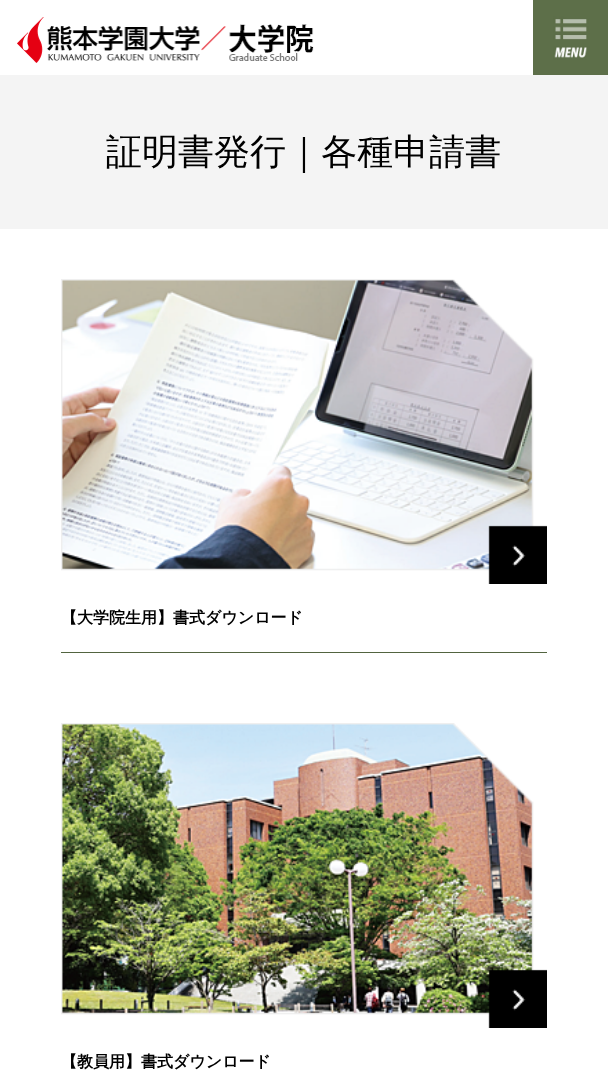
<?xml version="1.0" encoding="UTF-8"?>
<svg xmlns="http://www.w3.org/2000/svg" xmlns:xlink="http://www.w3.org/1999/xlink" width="608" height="1087">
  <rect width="100%" height="100%" fill="#ffffff" />
  <image x="17" y="17" width="297" height="46" xlink:href="image1.png" />
  <image x="533" y="0" width="75" height="75" xlink:href="image2.png" />
  <rect y="75" width="608" height="154" fill="#f4f4f4" />
  <image x="61" y="279" width="486" height="305" xlink:href="image3.png" />
  <rect x="61" y="652" width="486" height="1" fill="#526440" />
  <image x="61" y="723" width="486" height="305" xlink:href="image4.png" />
  <text x="106" y="164" style="font-family: WenQuanYi Zen Hei; font-size: 36px; font-weight: 500; fill: #000000">証明書発行｜各種申請書</text>
  <text x="61" y="623" style="font-family: WenQuanYi Zen Hei; font-size: 16px; font-weight: bold; fill: #000000">【大学院生用】書式ダウンロード</text>
  <text x="61" y="1067" style="font-family: WenQuanYi Zen Hei; font-size: 16px; font-weight: bold; fill: #000000">【教員用】書式ダウンロード</text>
</svg>
